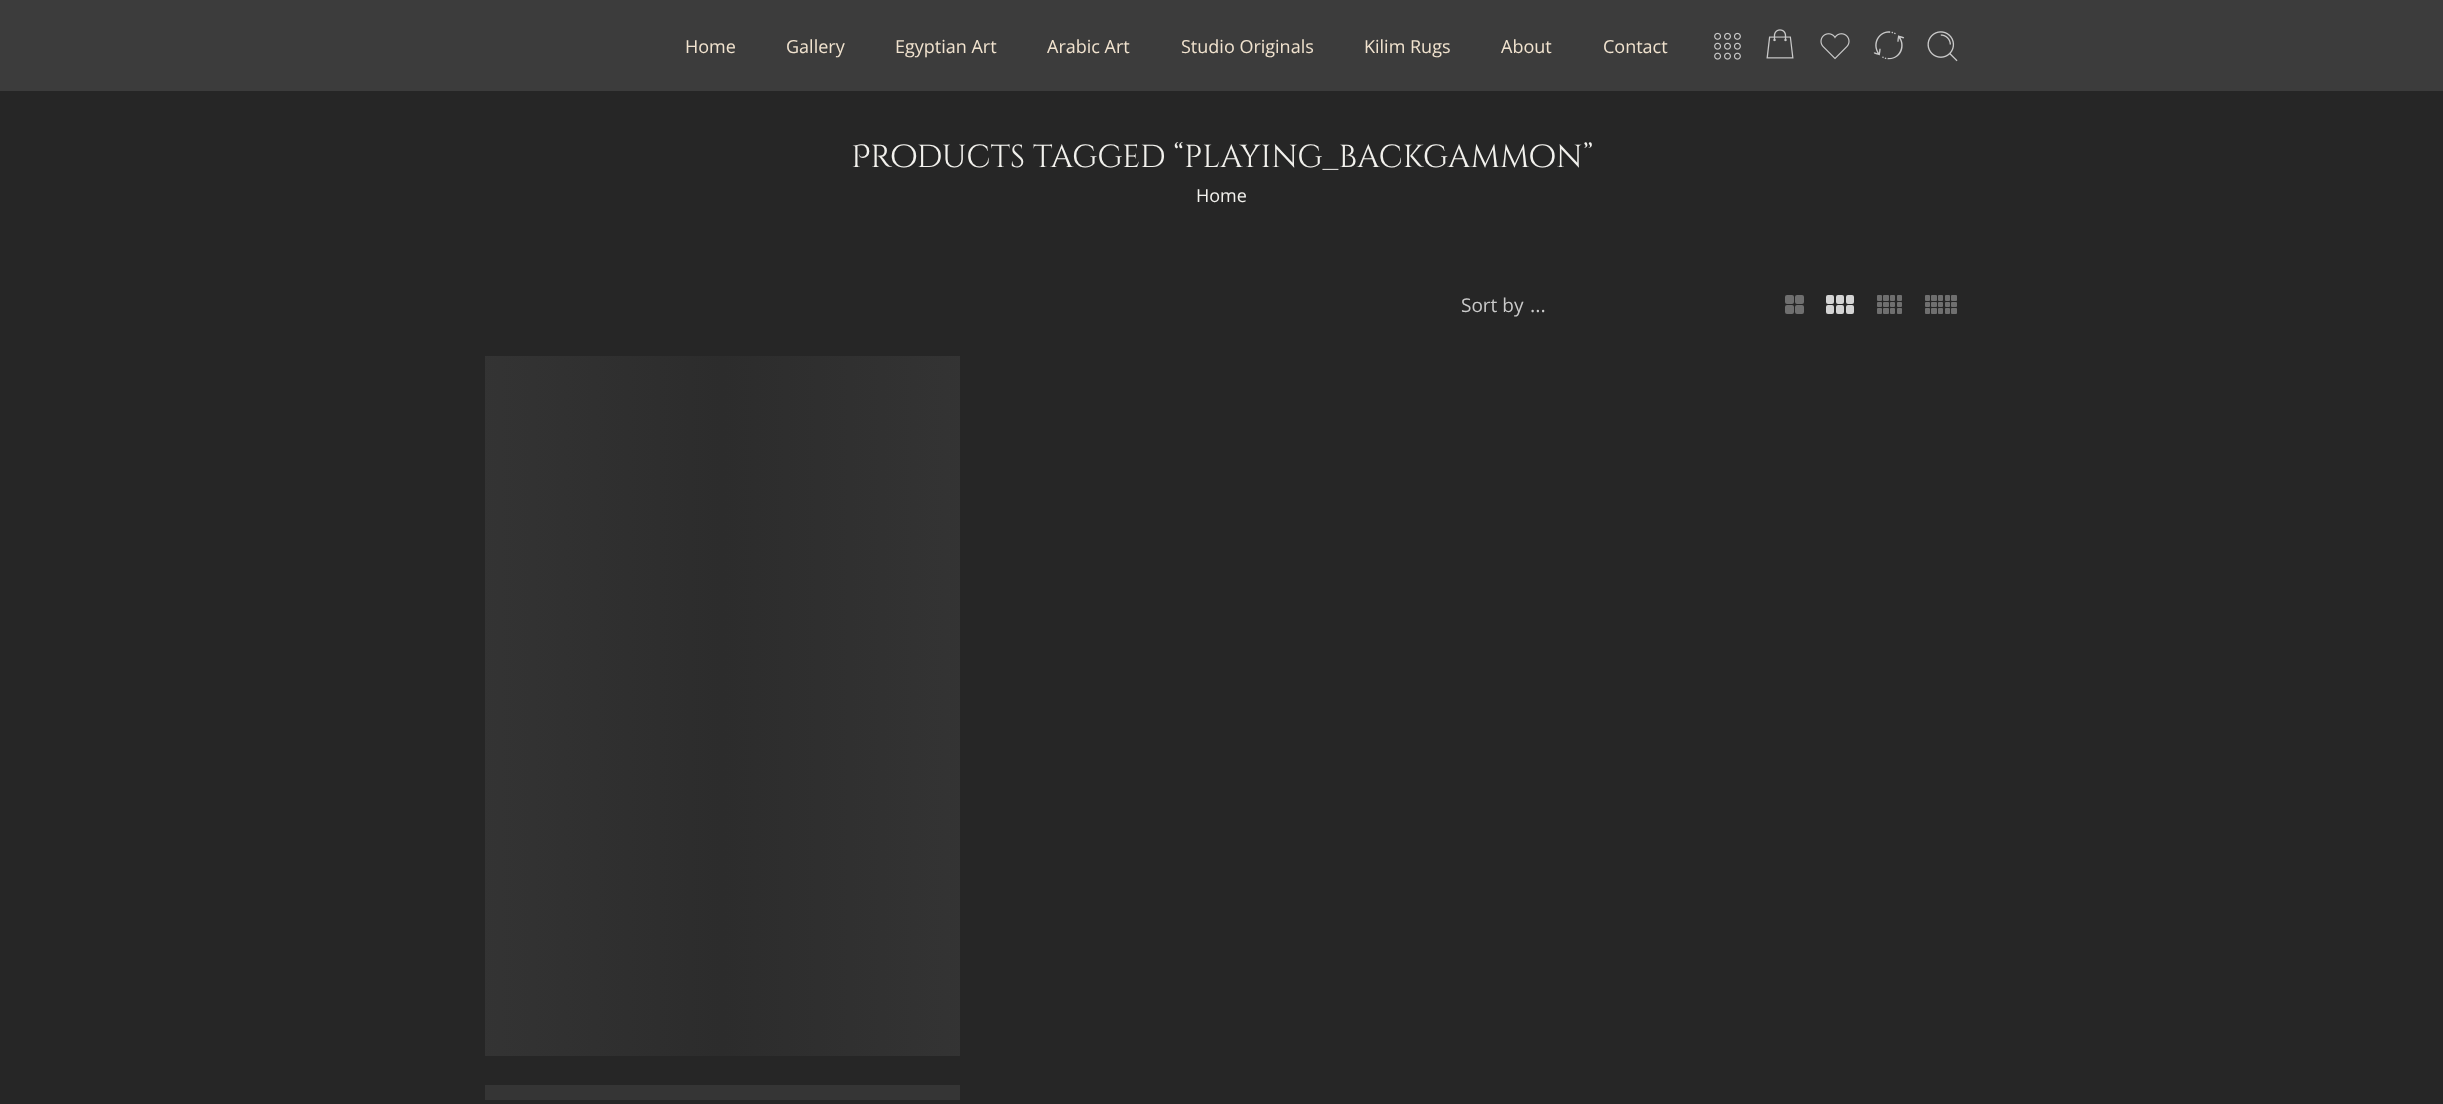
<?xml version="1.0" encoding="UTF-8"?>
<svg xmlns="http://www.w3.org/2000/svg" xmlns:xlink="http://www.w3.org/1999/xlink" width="2443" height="1104">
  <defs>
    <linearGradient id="g1" gradientUnits="userSpaceOnUse" x1="247" y1="707" x2="1198" y2="707"><stop offset="0.2" stop-color="#353535" /><stop offset="0.5" stop-color="#2c2c2c" /><stop offset="0.8" stop-color="#353535" /></linearGradient>
  </defs>
  <rect width="100%" height="100%" fill="#262626" />
  <rect width="2443" height="91" fill="#3c3c3c" />
  <image x="1714" y="32" width="27" height="28" xlink:href="image1.png" />
  <image x="1766" y="29" width="28" height="30" xlink:href="image2.png" />
  <image x="1820" y="33" width="30" height="27" xlink:href="image3.png" />
  <image x="1873" y="31" width="32" height="29" xlink:href="image4.png" />
  <image x="1927" y="31" width="31" height="31" xlink:href="image5.png" />
  <rect x="1785" y="295" width="9" height="9" rx="2" fill="#6f6f6f" />
  <rect x="1785" y="305" width="9" height="9" rx="2" fill="#6f6f6f" />
  <rect x="1795" y="295" width="9" height="9" rx="2" fill="#6f6f6f" />
  <rect x="1795" y="305" width="9" height="9" rx="2" fill="#6f6f6f" />
  <rect x="1826" y="295" width="8" height="9" rx="2" fill="#d4d4d4" />
  <rect x="1826" y="305" width="8" height="9" rx="2" fill="#d4d4d4" />
  <rect x="1836" y="295" width="8" height="9" rx="2" fill="#d4d4d4" />
  <rect x="1846" y="295" width="8" height="9" rx="2" fill="#d4d4d4" />
  <rect x="1836" y="305" width="8" height="9" rx="2" fill="#d4d4d4" />
  <rect x="1846" y="305" width="8" height="9" rx="2" fill="#d4d4d4" />
  <image x="1877" y="295" width="25" height="19" xlink:href="image6.png" />
  <image x="1925" y="295" width="32" height="19" xlink:href="image7.png" />
  <rect x="485" y="356" width="475" height="700" fill="url(#g1)" />
  <rect x="485" y="1085" width="475" height="15" fill="#353535" />
  <text x="685" y="53" style="font-family: Open Sans; font-size: 18px; fill: #f1e3cf">Home</text>
  <text x="786" y="53" style="font-family: Open Sans; font-size: 18px; fill: #f1e3cf">Gallery</text>
  <text x="895" y="53" style="font-family: Open Sans; font-size: 18px; fill: #f1e3cf">Egyptian Art</text>
  <text x="1047" y="53" style="font-family: Open Sans; font-size: 18px; fill: #f1e3cf">Arabic Art</text>
  <text x="1181" y="53" style="font-family: Open Sans; font-size: 18px; fill: #f1e3cf">Studio Originals</text>
  <text x="1364" y="53" style="font-family: Open Sans; font-size: 18px; fill: #f1e3cf">Kilim Rugs</text>
  <text x="1501" y="53" style="font-family: Open Sans; font-size: 18px; fill: #f1e3cf">About</text>
  <text x="1603" y="53" style="font-family: Open Sans; font-size: 18px; fill: #f1e3cf">Contact</text>
  <text x="851" y="167" style="font-family: Cinzel Decorative; font-size: 31.75px; fill: #f2f1ed">Products tagged “playing_backgammon”</text>
  <text x="1196" y="202" style="font-family: Open Sans; font-size: 18px; fill: #f2f1ed">Home</text>
  <text x="1461" y="312" style="font-family: Open Sans; font-size: 19px; fill: #cacaca">Sort by</text>
  <text x="1530" y="312" style="font-family: Open Sans; font-size: 20px; fill: #cacaca">...</text>
</svg>
